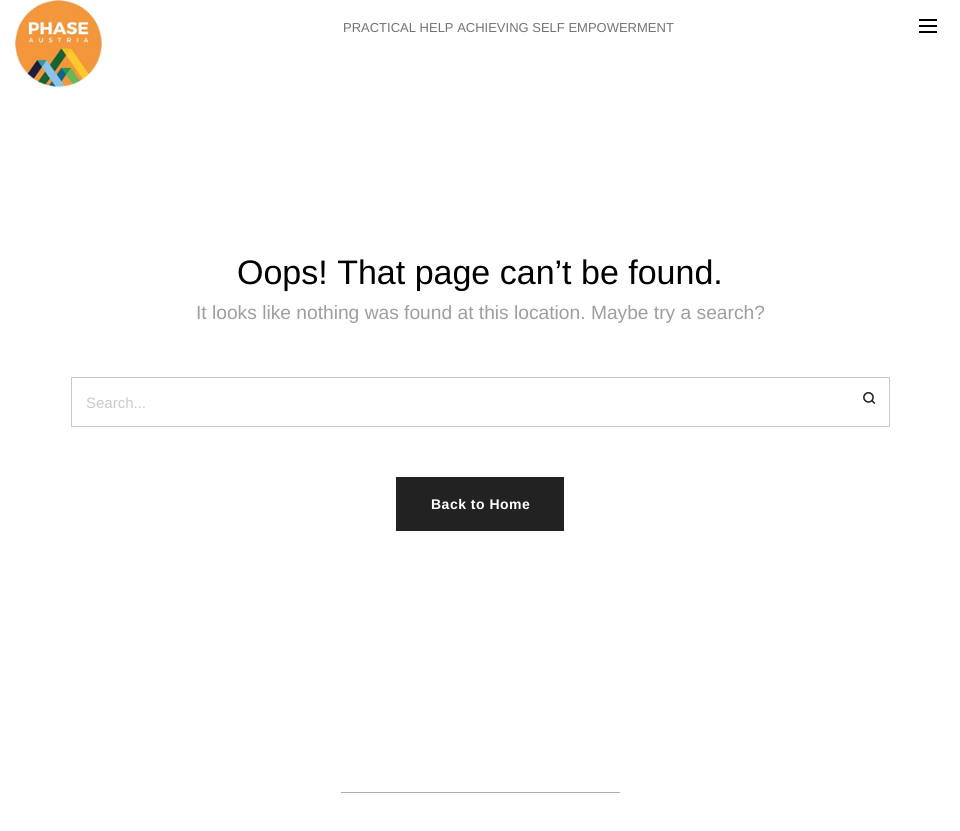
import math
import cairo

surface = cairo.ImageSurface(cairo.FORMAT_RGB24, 960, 831)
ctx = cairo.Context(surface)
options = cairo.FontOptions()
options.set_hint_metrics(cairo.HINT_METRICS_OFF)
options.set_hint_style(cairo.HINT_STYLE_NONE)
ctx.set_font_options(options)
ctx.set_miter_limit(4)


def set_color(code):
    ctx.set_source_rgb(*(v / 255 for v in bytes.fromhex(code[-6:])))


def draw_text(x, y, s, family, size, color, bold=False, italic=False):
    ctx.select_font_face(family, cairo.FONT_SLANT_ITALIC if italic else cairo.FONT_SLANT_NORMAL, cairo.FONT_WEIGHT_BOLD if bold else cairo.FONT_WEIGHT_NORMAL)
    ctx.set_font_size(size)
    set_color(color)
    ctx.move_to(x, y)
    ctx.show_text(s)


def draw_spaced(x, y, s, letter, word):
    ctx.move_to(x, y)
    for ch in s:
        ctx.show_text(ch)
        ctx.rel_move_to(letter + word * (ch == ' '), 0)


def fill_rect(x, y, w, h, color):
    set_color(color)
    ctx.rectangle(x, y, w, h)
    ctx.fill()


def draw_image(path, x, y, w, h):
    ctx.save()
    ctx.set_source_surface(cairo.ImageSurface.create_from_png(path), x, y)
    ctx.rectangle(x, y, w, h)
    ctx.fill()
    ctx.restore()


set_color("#ffffff")
ctx.paint()
draw_image("assets/img1.png", 15, 0, 87, 87)
draw_text(343, 32, "PRACTICAL HELP ACHIEVING SELF EMPOWERMENT", "Liberation Sans", 13, "#737373")
fill_rect(919, 19, 18, 2, "#000000")
fill_rect(919, 25, 18, 2, "#000000")
fill_rect(919, 31, 18, 2, "#000000")
draw_text(237, 284, "Oops! That page can’t be found.", "Liberation Sans", 34, "#000000")
draw_text(196, 319, "It looks like nothing was found at this location. Maybe try a search?", "Liberation Sans", 19.2, "#9e9e9e")
ctx.rectangle(71.5, 377.5, 818, 49)
set_color("#cacaca")
ctx.set_line_width(1)
ctx.stroke()
draw_text(86, 408, "Search...", "Liberation Sans", 15, "#cacaca")
draw_image("assets/img2.png", 863, 392, 13, 12)
fill_rect(396, 477, 168, 54, "#222222")
ctx.select_font_face("Liberation Sans", cairo.FONT_SLANT_NORMAL, cairo.FONT_WEIGHT_BOLD)
ctx.set_font_size(14)
set_color("#ffffff")
draw_spaced(431, 509, "Back to Home", 0.5, 0)
fill_rect(341, 792, 279, 1, "#acacac")
surface.write_to_png("output.png")
